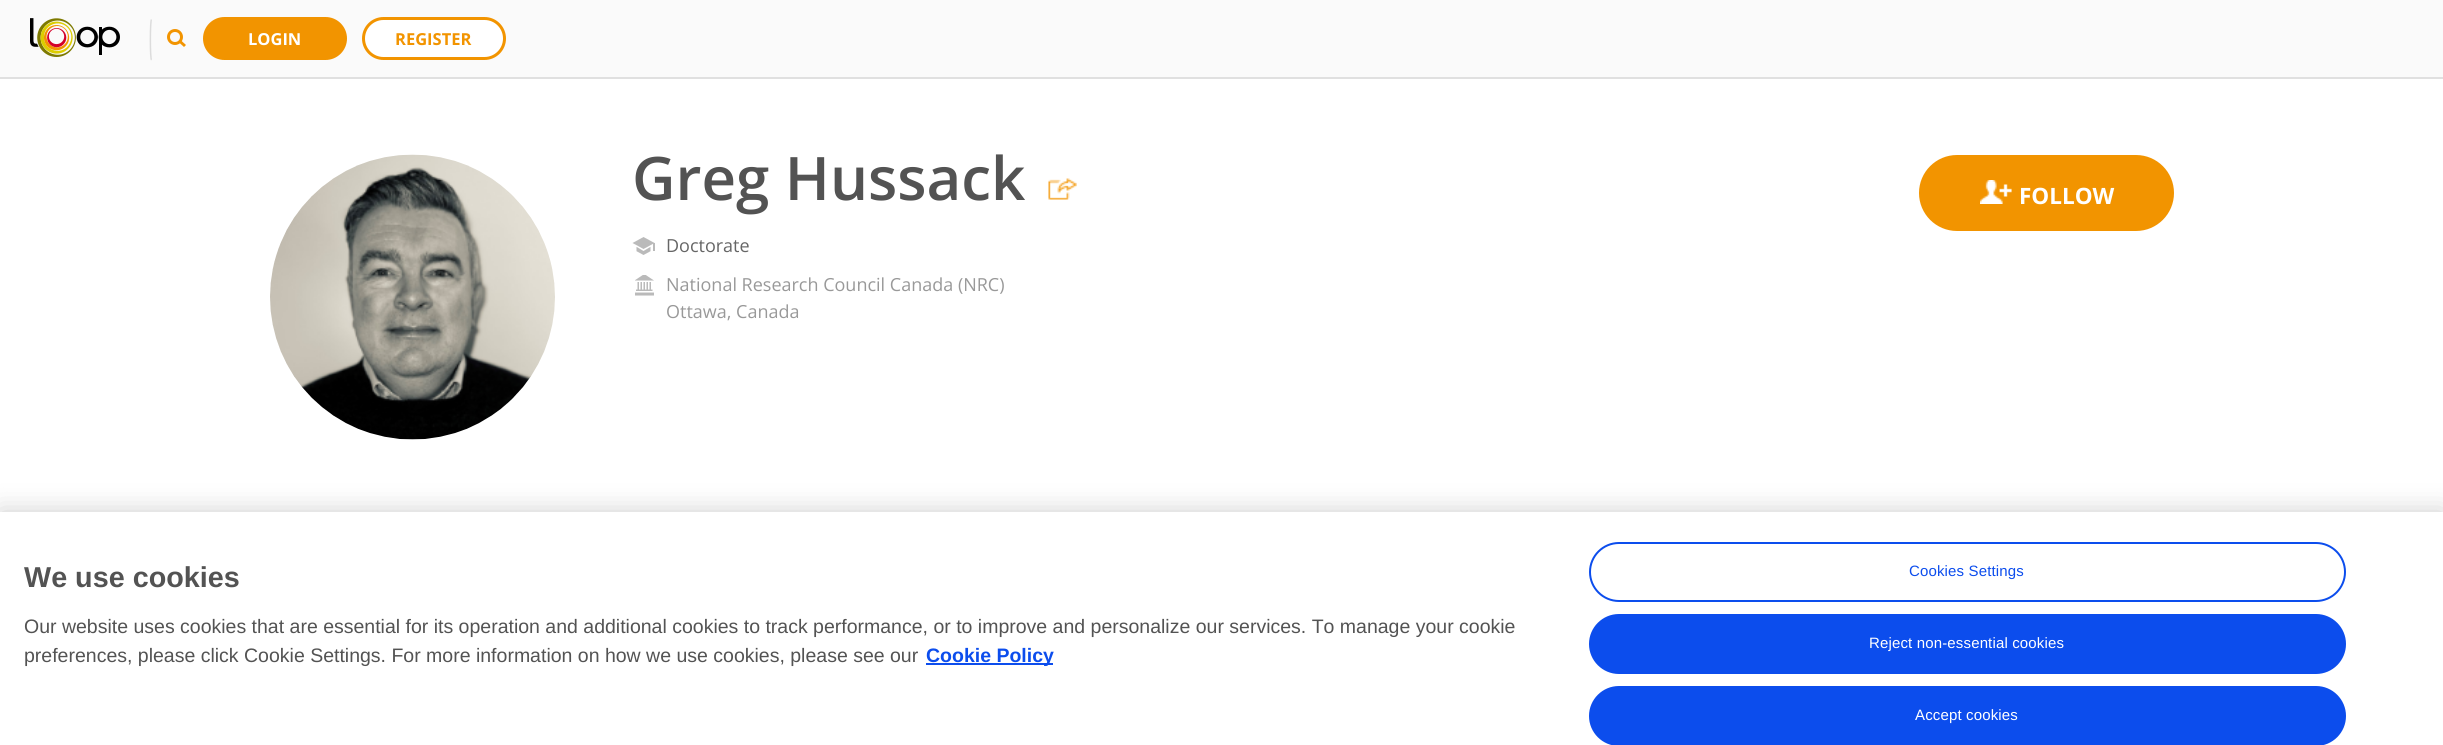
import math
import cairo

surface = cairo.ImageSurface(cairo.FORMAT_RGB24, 2443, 745)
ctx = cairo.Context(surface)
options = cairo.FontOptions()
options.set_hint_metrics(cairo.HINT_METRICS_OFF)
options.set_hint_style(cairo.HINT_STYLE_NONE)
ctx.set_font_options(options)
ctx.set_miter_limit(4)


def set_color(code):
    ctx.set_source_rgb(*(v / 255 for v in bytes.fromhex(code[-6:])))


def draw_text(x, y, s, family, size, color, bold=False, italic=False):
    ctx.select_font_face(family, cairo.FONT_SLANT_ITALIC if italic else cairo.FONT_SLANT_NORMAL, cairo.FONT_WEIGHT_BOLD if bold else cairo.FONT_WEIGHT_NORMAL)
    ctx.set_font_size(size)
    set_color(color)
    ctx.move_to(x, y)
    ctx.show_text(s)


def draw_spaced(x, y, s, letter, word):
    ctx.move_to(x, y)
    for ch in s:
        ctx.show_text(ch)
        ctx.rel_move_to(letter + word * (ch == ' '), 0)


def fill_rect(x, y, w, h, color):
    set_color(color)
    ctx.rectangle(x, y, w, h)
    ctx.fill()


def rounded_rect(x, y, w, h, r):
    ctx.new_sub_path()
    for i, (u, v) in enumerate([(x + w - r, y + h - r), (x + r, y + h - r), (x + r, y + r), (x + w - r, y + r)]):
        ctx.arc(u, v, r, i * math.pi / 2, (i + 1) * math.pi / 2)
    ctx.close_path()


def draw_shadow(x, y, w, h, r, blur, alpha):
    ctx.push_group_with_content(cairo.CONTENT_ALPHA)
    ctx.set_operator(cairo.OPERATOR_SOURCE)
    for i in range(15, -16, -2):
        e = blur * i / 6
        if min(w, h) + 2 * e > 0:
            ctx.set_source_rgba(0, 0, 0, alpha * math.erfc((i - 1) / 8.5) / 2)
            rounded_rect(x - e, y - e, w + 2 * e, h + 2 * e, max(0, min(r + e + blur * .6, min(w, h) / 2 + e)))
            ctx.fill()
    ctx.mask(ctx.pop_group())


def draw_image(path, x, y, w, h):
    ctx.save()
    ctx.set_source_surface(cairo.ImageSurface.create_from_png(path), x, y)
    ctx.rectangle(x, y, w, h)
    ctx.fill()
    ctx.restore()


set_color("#ffffff")
ctx.paint()
fill_rect(0, 0, 2443, 77, "#fafafa")
fill_rect(0, 77, 2443, 2, "#e0e0e0")
draw_image("assets/img1.png", 30, 18, 90, 39)
ctx.new_path()
ctx.move_to(151.5, 60)
ctx.curve_to(150, 59, 150, 20.5, 151.5, 19.5)
set_color("#dcdcdc")
ctx.set_line_width(1.5)
ctx.stroke()
set_color("#f29400")
ctx.arc(175, 37, 8, 0, 2 * math.pi)
ctx.fill()
set_color("#f9f9f9")
ctx.arc(175, 37, 5, 0, 2 * math.pi)
ctx.fill()
set_color("#f29400")
ctx.new_path()
ctx.move_to(180.5, 40)
ctx.line_to(186, 45)
ctx.line_to(184, 47)
ctx.line_to(178.5, 42)
ctx.close_path()
ctx.fill()
rounded_rect(204.5, 18.5, 141, 40, 20)
ctx.fill_preserve()
ctx.set_line_width(3)
ctx.stroke()
draw_text(248, 45, "LOGIN", "Open Sans", 16.5, "#ffffff", bold=True)
rounded_rect(363.5, 18.5, 141, 40, 20)
ctx.fill_preserve()
set_color("#f29400")
ctx.stroke()
draw_text(395, 45, "REGISTER", "Open Sans", 16.5, "#f29400", bold=True)
draw_image("assets/img2.png", 270, 154, 285, 286)
draw_text(632, 200, "Greg Hussack", "Open Sans SemiBold", 60, "#535353")
draw_image("assets/img3.png", 1048, 178, 29, 22)
draw_image("assets/img4.png", 632, 237, 23, 18)
draw_text(666, 252, "Doctorate", "Open Sans", 18, "#666666")
draw_image("assets/img5.png", 635, 275, 19, 21)
draw_text(666, 291, "National Research Council Canada (NRC)", "Open Sans", 18, "#999999")
draw_text(666, 318, "Ottawa, Canada", "Open Sans", 18, "#999999")
set_color("#f29400")
rounded_rect(1921.5, 157.5, 250, 71, 35.5)
ctx.fill_preserve()
ctx.set_line_width(5)
ctx.stroke()
draw_image("assets/img6.png", 1980, 180, 32, 24)
draw_text(2019, 204, "FOLLOW", "Open Sans", 22.5, "#ffffff", bold=True)
set_color("#000000")
draw_shadow(0, 512, 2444, 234, 0, 13.5, 0.2)
fill_rect(0, 512, 2443, 233, "#ffffff")
draw_text(24, 587, "We use cookies", "Liberation Sans", 28.75, "#535353", bold=True)
draw_text(24, 633, "Our website uses cookies that are essential for its operation and additional cookies to track performance, or to improve and personalize our services. To manage your cookie", "Liberation Sans", 19.5, "#535353")
draw_text(24, 662, "preferences, please click Cookie Settings. For more information on how we use cookies, please see our", "Liberation Sans", 19.5, "#535353")
fill_rect(926, 663, 127, 2, "#0c4ded")
draw_text(926, 662, "Cookie Policy", "Liberation Sans", 19.5, "#0c4ded", bold=True)
rounded_rect(1590, 543, 755, 58, 29)
ctx.set_line_width(2)
ctx.stroke()
ctx.select_font_face("Liberation Sans")
ctx.set_font_size(15)
draw_spaced(1909, 576, "Cookies Settings", 0.15, 0)
rounded_rect(1590, 615, 755, 58, 29)
ctx.fill_preserve()
ctx.stroke()
set_color("#ffffff")
draw_spaced(1869, 648, "Reject non-essential cookies", 0.15, 0)
set_color("#0c4ded")
rounded_rect(1590, 687, 755, 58, 29)
ctx.fill_preserve()
ctx.stroke()
set_color("#ffffff")
draw_spaced(1915, 720, "Accept cookies", 0.15, 0)
surface.write_to_png("output.png")
